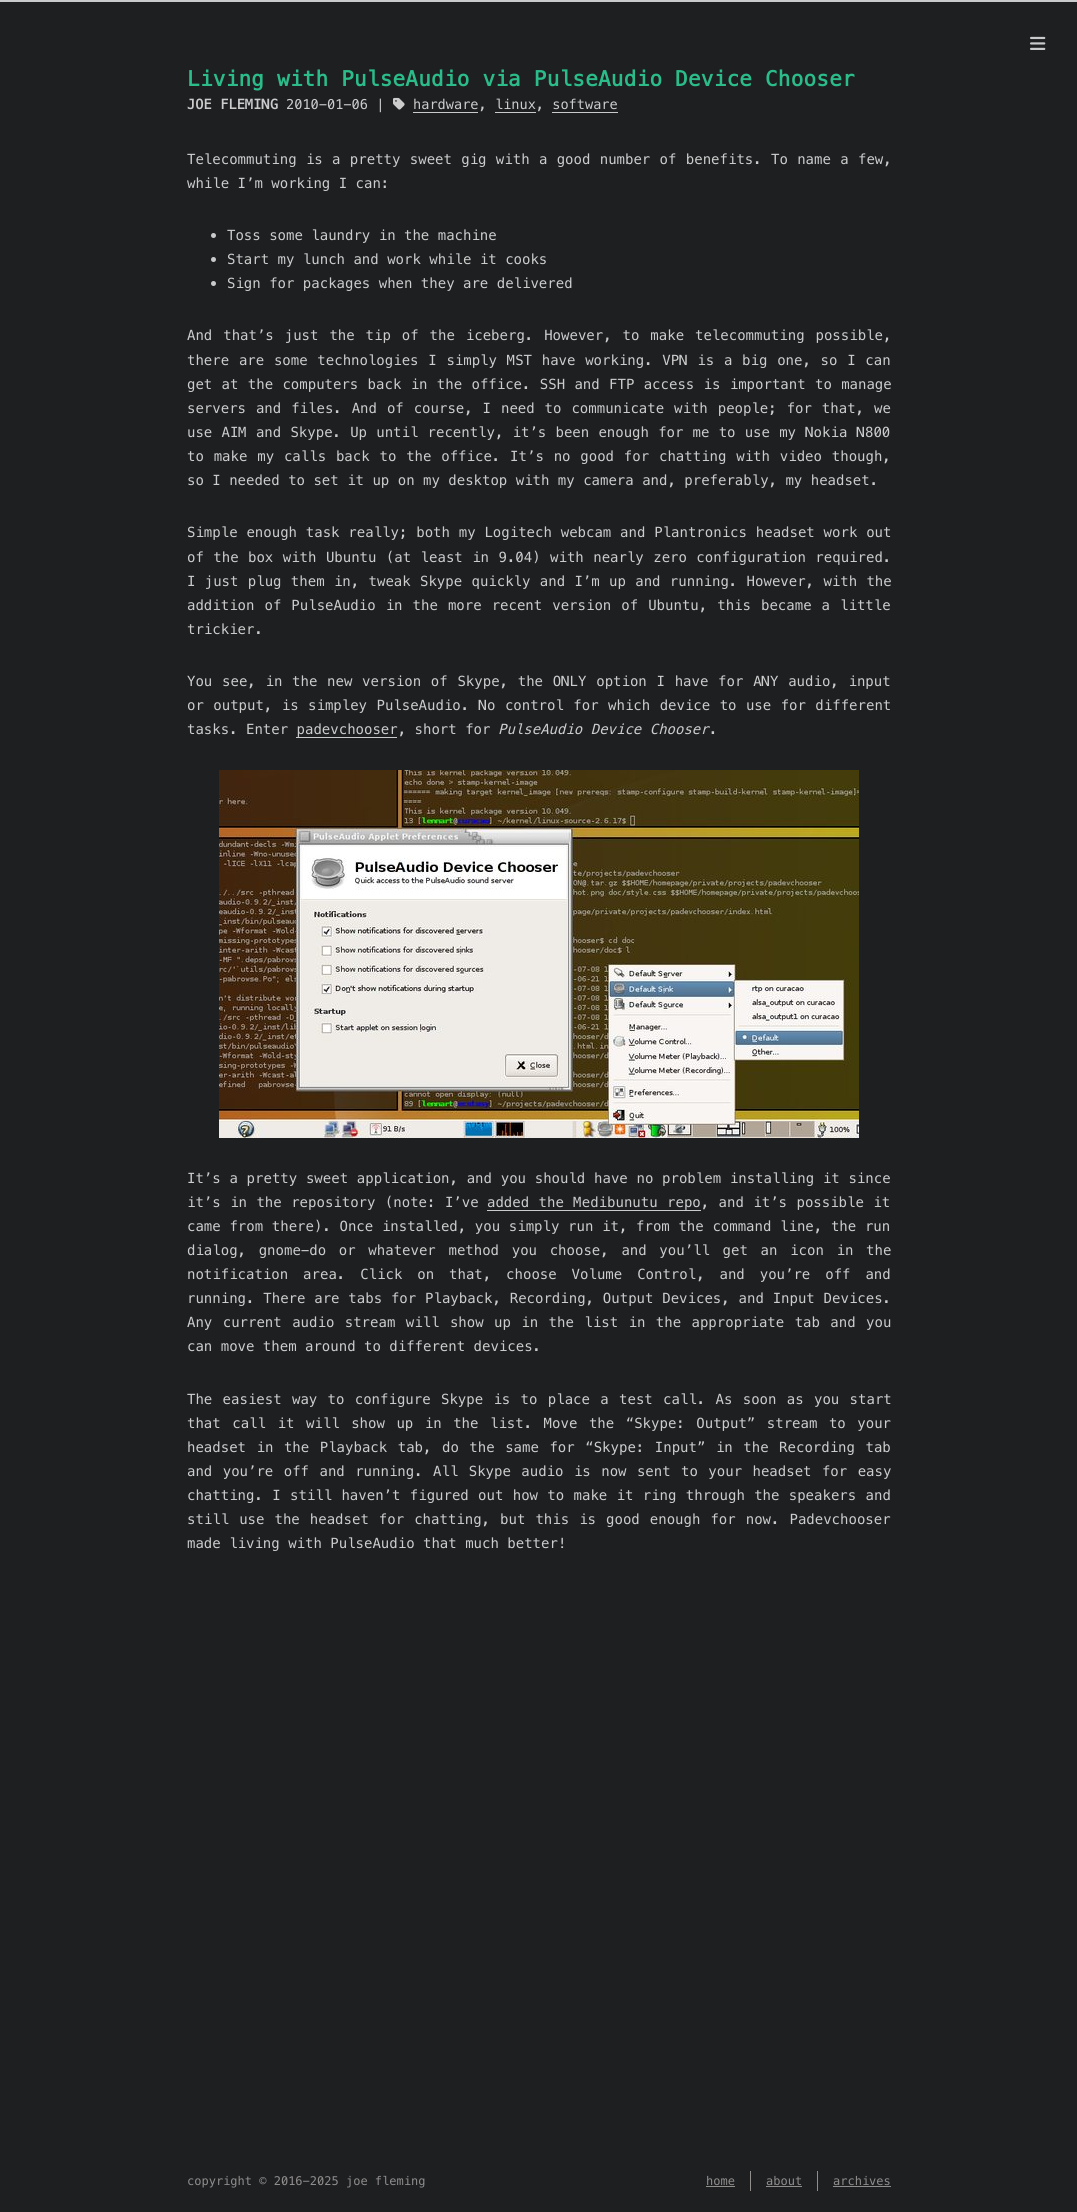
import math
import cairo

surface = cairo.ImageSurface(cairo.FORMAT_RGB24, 1077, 2212)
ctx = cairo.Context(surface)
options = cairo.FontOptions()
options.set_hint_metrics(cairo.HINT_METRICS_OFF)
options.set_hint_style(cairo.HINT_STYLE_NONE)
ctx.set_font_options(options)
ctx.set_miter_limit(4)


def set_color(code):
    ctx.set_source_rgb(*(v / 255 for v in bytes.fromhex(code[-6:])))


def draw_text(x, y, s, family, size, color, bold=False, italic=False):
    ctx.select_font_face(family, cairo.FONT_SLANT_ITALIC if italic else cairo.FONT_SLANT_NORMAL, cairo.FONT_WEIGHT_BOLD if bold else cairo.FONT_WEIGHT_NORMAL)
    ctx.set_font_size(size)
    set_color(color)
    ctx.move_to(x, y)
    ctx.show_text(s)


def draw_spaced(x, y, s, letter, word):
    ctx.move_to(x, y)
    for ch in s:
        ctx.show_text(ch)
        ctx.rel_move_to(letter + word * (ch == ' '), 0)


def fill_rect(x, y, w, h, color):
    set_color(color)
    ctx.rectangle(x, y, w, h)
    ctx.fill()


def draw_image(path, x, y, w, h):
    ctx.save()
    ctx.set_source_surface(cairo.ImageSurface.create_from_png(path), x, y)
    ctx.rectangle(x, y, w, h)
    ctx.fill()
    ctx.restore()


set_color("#1d1f21")
ctx.paint()
fill_rect(0, 0, 1077, 2, "#c9cacc")
draw_image("assets/img1.png", 1030, 36, 16, 14)
ctx.select_font_face("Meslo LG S", cairo.FONT_SLANT_NORMAL, cairo.FONT_WEIGHT_BOLD)
ctx.set_font_size(21)
set_color("#2bbc8a")
draw_spaced(187, 86, "Living with PulseAudio via PulseAudio Device Chooser", 0.2, 0)
ctx.set_font_size(13.6)
set_color("#cccccc")
draw_spaced(187, 109, "JOE FLEMING", 0.1, 0)
draw_text(286, 109, "2010-01-06 |", "Meslo LG S", 13.6, "#cccccc")
draw_image("assets/img2.png", 393, 97, 12, 13)
draw_text(413, 109, "hardware, linux, software", "Meslo LG S", 13.6, "#cccccc")
gradient = cairo.LinearGradient(446, 107, 446, 113)
gradient.add_color_stop_rgba(0, 0.114, 0.122, 0.129, 1)
gradient.add_color_stop_rgba(0.83, 0.114, 0.122, 0.129, 1)
gradient.add_color_stop_rgba(0.83, 0.788, 0.792, 0.8, 1)
gradient.add_color_stop_rgba(1, 0.788, 0.792, 0.8, 1)
ctx.set_source(gradient)
ctx.rectangle(413, 112, 65, 1)
ctx.fill()
gradient = cairo.LinearGradient(516, 107, 516, 113)
gradient.add_color_stop_rgba(0, 0.114, 0.122, 0.129, 1)
gradient.add_color_stop_rgba(0.83, 0.114, 0.122, 0.129, 1)
gradient.add_color_stop_rgba(0.83, 0.788, 0.792, 0.8, 1)
gradient.add_color_stop_rgba(1, 0.788, 0.792, 0.8, 1)
ctx.set_source(gradient)
ctx.rectangle(495, 112, 41, 1)
ctx.fill()
gradient = cairo.LinearGradient(585, 107, 585, 113)
gradient.add_color_stop_rgba(0, 0.114, 0.122, 0.129, 1)
gradient.add_color_stop_rgba(0.83, 0.114, 0.122, 0.129, 1)
gradient.add_color_stop_rgba(0.83, 0.788, 0.792, 0.8, 1)
gradient.add_color_stop_rgba(1, 0.788, 0.792, 0.8, 1)
ctx.set_source(gradient)
ctx.rectangle(552, 112, 66, 1)
ctx.fill()
ctx.set_font_size(14)
set_color("#cccccc")
draw_spaced(187, 164, "Telecommuting is a pretty sweet gig with a good number of benefits. To name a few,", 0, 0.9)
draw_text(187, 188, "while I’m working I can:", "Meslo LG S", 14, "#cccccc")
set_color("#c9cacc")
ctx.new_path()
ctx.arc(213.5, 235.5, 2.5, 0, 2 * math.pi)
ctx.fill()
draw_text(227, 240, "Toss some laundry in the machine", "Meslo LG S", 14, "#cccccc")
set_color("#c9cacc")
ctx.new_path()
ctx.arc(213.5, 259.5, 2.5, 0, 2 * math.pi)
ctx.fill()
draw_text(227, 264, "Start my lunch and work while it cooks", "Meslo LG S", 14, "#cccccc")
set_color("#c9cacc")
ctx.new_path()
ctx.arc(213.5, 283.5, 2.5, 0, 2 * math.pi)
ctx.fill()
draw_text(227, 288, "Sign for packages when they are delivered", "Meslo LG S", 14, "#cccccc")
draw_spaced(187, 340, "And that’s just the tip of the iceberg. However, to make telecommuting possible,", 0, 2.5)
draw_spaced(187, 365, "there are some technologies I simply MST have working. VPN is a big one, so I can", 0, 1.3)
draw_spaced(187, 389, "get at the computers back in the office. SSH and FTP access is important to manage", 0, 0.9)
draw_spaced(187, 413, "servers and files. And of course, I need to communicate with people; for that, we", 0, 1.5)
draw_spaced(187, 437, "use AIM and Skype. Up until recently, it’s been enough for me to use my Nokia N800", 0, 0.75)
draw_spaced(187, 461, "to make my calls back to the office. It’s no good for chatting with video though,", 0, 1.4)
draw_text(187, 485, "so I needed to set it up on my desktop with my camera and, preferably, my headset.", "Meslo LG S", 14, "#cccccc")
draw_spaced(187, 537, "Simple enough task really; both my Logitech webcam and Plantronics headset work out", 0, 0.4)
draw_spaced(187, 562, "of the box with Ubuntu (at least in 9.04) with nearly zero configuration required.", 0, 1)
draw_spaced(187, 586, "I just plug them in, tweak Skype quickly and I’m up and running. However, with the", 0, 0.9)
draw_spaced(187, 610, "addition of PulseAudio in the more recent version of Ubuntu, this became a little", 0, 1.6)
draw_text(187, 634, "trickier.", "Meslo LG S", 14, "#cccccc")
draw_spaced(187, 686, "You see, in the new version of Skype, the ONLY option I have for ANY audio, input", 0, 1.3)
draw_spaced(187, 710, "or output, is simpley PulseAudio. No control for which device to use for different", 0, 1)
draw_text(187, 734, "tasks. Enter padevchooser, short for", "Meslo LG S", 14, "#cccccc")
draw_text(498, 734, "PulseAudio Device Chooser", "Meslo LG S", 14, "#cccccc", italic=True)
draw_text(709, 734, ".", "Meslo LG S", 14, "#cccccc")
gradient = cairo.LinearGradient(347, 732, 347, 738)
gradient.add_color_stop_rgba(0, 0.114, 0.122, 0.129, 1)
gradient.add_color_stop_rgba(0.83, 0.114, 0.122, 0.129, 1)
gradient.add_color_stop_rgba(0.83, 0.788, 0.792, 0.8, 1)
gradient.add_color_stop_rgba(1, 0.788, 0.792, 0.8, 1)
ctx.set_source(gradient)
ctx.rectangle(296, 737, 101, 1)
ctx.fill()
draw_image("assets/img3.png", 219, 770, 640, 368)
set_color("#cccccc")
draw_spaced(187, 1183, "It’s a pretty sweet application, and you should have no problem installing it since", 0, 0.3)
draw_spaced(187, 1207, "it’s in the repository (note: I’ve", 0, 1)
draw_spaced(487, 1207, "added the Medibunutu repo, and it’s possible it", 0, 1)
gradient = cairo.LinearGradient(594, 1205, 594, 1211)
gradient.add_color_stop_rgba(0, 0.114, 0.122, 0.129, 1)
gradient.add_color_stop_rgba(0.83, 0.114, 0.122, 0.129, 1)
gradient.add_color_stop_rgba(0.83, 0.788, 0.792, 0.8, 1)
gradient.add_color_stop_rgba(1, 0.788, 0.792, 0.8, 1)
ctx.set_source(gradient)
ctx.rectangle(487, 1210, 214, 1)
ctx.fill()
set_color("#cccccc")
draw_spaced(187, 1231, "came from there). Once installed, you simply run it, from the command line, the run", 0, 0.25)
draw_spaced(187, 1255, "dialog, gnome-do or whatever method you choose, and you’ll get an icon in the", 0, 4.25)
draw_spaced(187, 1279, "notification area. Click on that, choose Volume Control, and you’re off and", 0, 6.5)
draw_spaced(187, 1303, "running. There are tabs for Playback, Recording, Output Devices, and Input Devices.", 0, 0.4)
draw_spaced(187, 1327, "Any current audio stream will show up in the list in the appropriate tab and you", 0, 2)
draw_text(187, 1351, "can move them around to different devices.", "Meslo LG S", 14, "#cccccc")
draw_spaced(187, 1404, "The easiest way to configure Skype is to place a test call. As soon as you start", 0, 1.9)
draw_spaced(187, 1428, "that call it will show up in the list. Move the “Skype: Output” stream to your", 0, 3.1)
draw_spaced(187, 1452, "headset in the Playback tab, do the same for “Skype: Input” in the Recording tab", 0, 2.1)
draw_spaced(187, 1476, "and you’re off and running. All Skype audio is now sent to your headset for easy", 0, 2)
draw_spaced(187, 1500, "chatting. I still haven’t figured out how to make it ring through the speakers and", 0, 0.9)
draw_spaced(187, 1524, "still use the headset for chatting, but this is good enough for now. Padevchooser", 0, 1.6)
draw_text(187, 1548, "made living with PulseAudio that much better!", "Meslo LG S", 14, "#cccccc")
draw_text(187, 2185, "copyright © 2016-2025 joe fleming", "Meslo LG S", 12, "#908d8d")
fill_rect(750, 2171, 1, 20, "#908d8d")
draw_text(706, 2185, "home", "Meslo LG S", 12, "#908d8d")
fill_rect(706, 2186, 29, 1, "#908d8d")
fill_rect(817, 2171, 1, 20, "#908d8d")
draw_text(766, 2185, "about", "Meslo LG S", 12, "#908d8d")
fill_rect(766, 2186, 36, 1, "#908d8d")
draw_text(833, 2185, "archives", "Meslo LG S", 12, "#908d8d")
fill_rect(833, 2186, 58, 1, "#908d8d")
surface.write_to_png("output.png")
